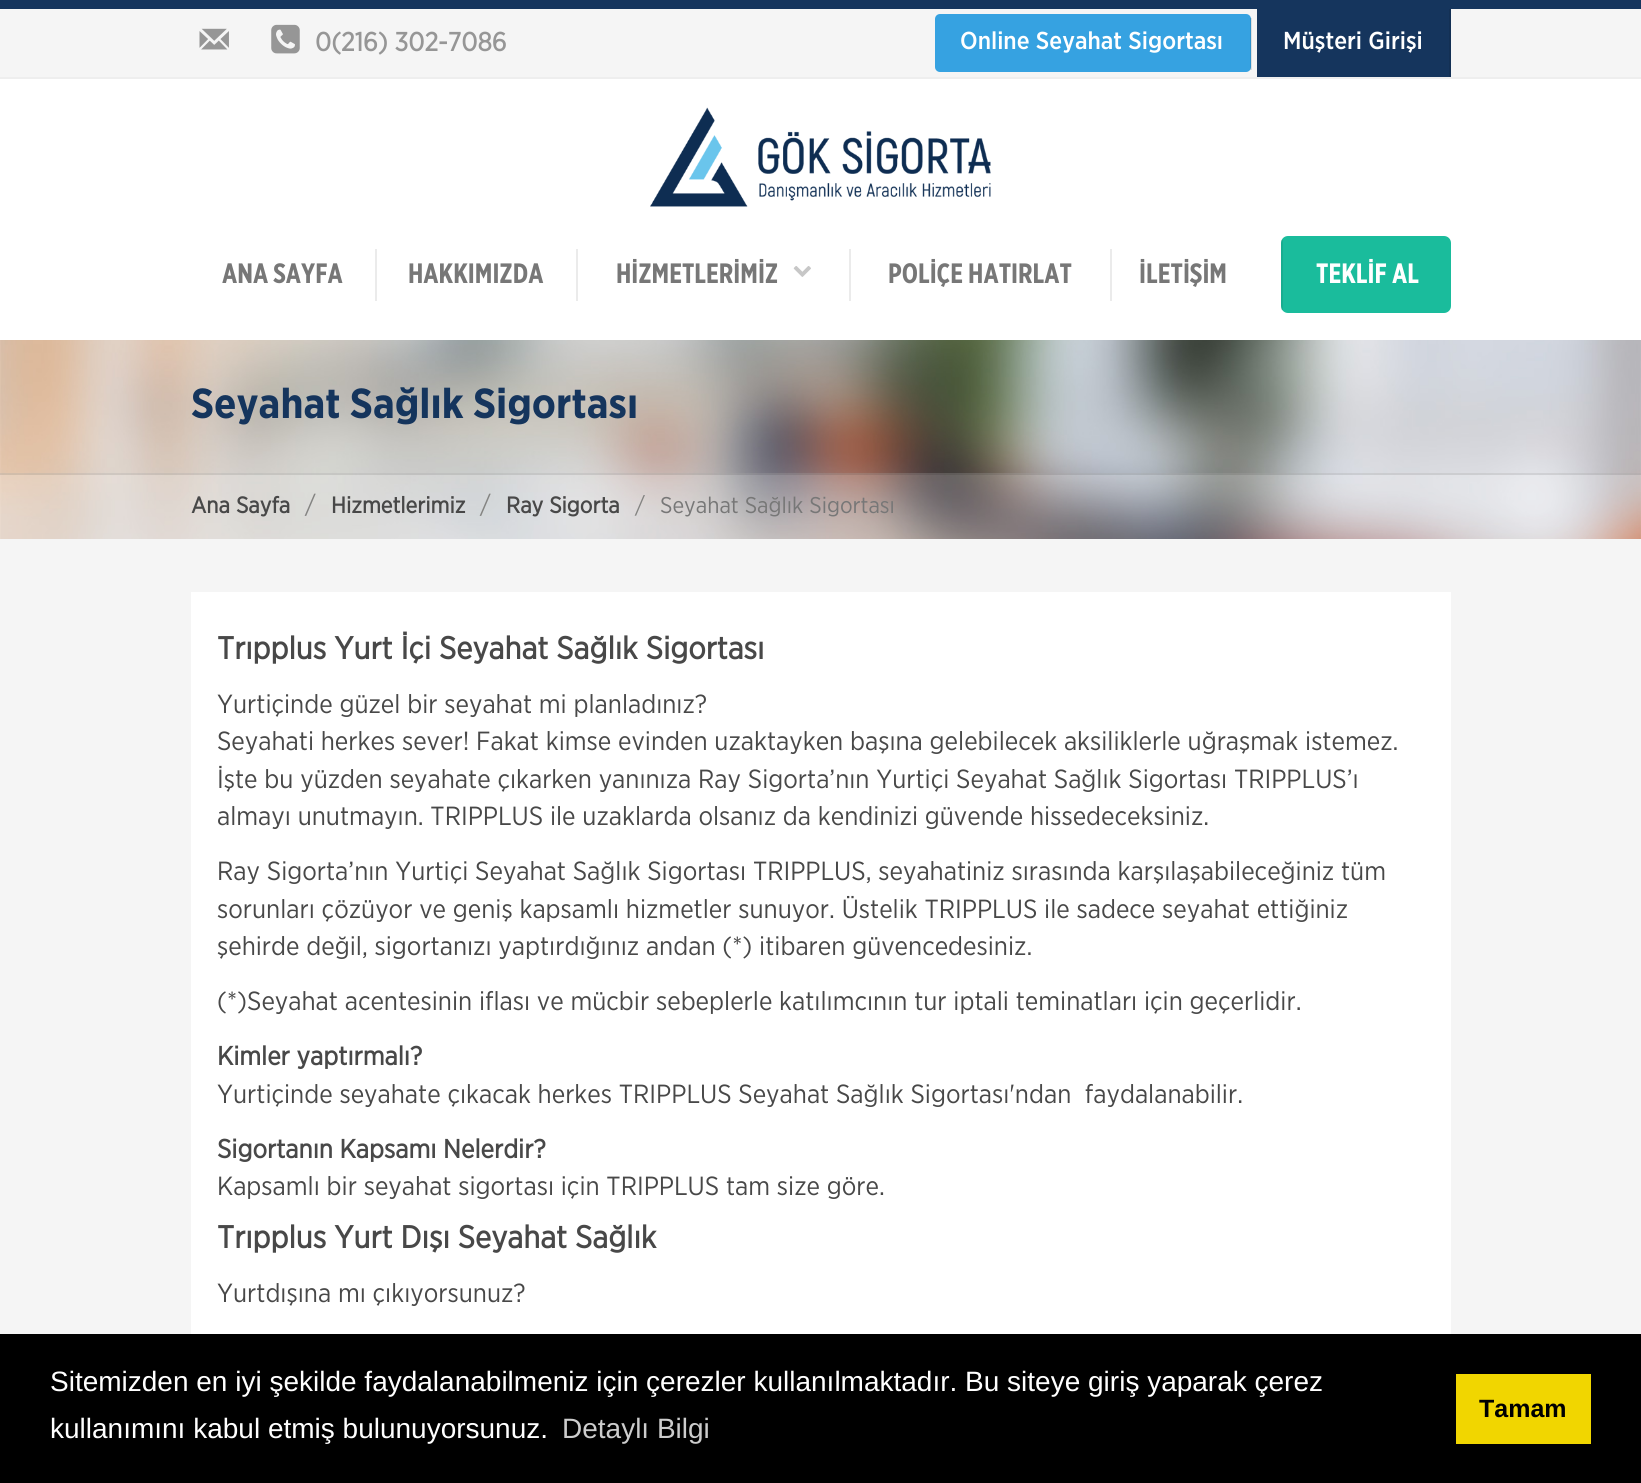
import math
import cairo

surface = cairo.ImageSurface(cairo.FORMAT_RGB24, 1641, 1483)
ctx = cairo.Context(surface)
options = cairo.FontOptions()
options.set_hint_metrics(cairo.HINT_METRICS_OFF)
options.set_hint_style(cairo.HINT_STYLE_NONE)
ctx.set_font_options(options)
ctx.set_miter_limit(4)


def set_color(code):
    ctx.set_source_rgb(*(v / 255 for v in bytes.fromhex(code[-6:])))


def draw_text(x, y, s, family, size, color, bold=False, italic=False):
    ctx.select_font_face(family, cairo.FONT_SLANT_ITALIC if italic else cairo.FONT_SLANT_NORMAL, cairo.FONT_WEIGHT_BOLD if bold else cairo.FONT_WEIGHT_NORMAL)
    ctx.set_font_size(size)
    set_color(color)
    ctx.move_to(x, y)
    ctx.show_text(s)


def fill_rect(x, y, w, h, color):
    set_color(color)
    ctx.rectangle(x, y, w, h)
    ctx.fill()


def rounded_rect(x, y, w, h, r):
    ctx.new_sub_path()
    for i, (u, v) in enumerate([(x + w - r, y + h - r), (x + r, y + h - r), (x + r, y + r), (x + w - r, y + r)]):
        ctx.arc(u, v, r, i * math.pi / 2, (i + 1) * math.pi / 2)
    ctx.close_path()


def draw_image(path, x, y, w, h):
    ctx.save()
    ctx.set_source_surface(cairo.ImageSurface.create_from_png(path), x, y)
    ctx.rectangle(x, y, w, h)
    ctx.fill()
    ctx.restore()


set_color("#f5f5f5")
ctx.paint()
fill_rect(0, 0, 1641, 9, "#15355d")
fill_rect(0, 77, 1641, 2, "#eeeeee")
draw_image("assets/img1.png", 199, 28, 30, 22)
draw_image("assets/img2.png", 271, 24, 29, 30)
draw_text(315, 51, "0(216) 302-7086", "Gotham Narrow", 26.25, "#969696", bold=True)
set_color("#36a2e1")
rounded_rect(935, 14, 316, 58, 5)
ctx.fill()
ctx.set_source_rgba(0, 0, 0, 0.1)
ctx.rectangle(1250, 18, 2, 52)
ctx.fill()
draw_text(960, 49, "Online Seyahat Sigortası", "Gotham Narrow Medium", 24.5, "#ffffff")
fill_rect(1257, 9, 192, 68, "#15355d")
fill_rect(1449, 9, 2, 68, "#133054")
draw_text(1283, 49, "Müşteri Girişi", "Gotham Narrow Medium", 24.5, "#ffffff")
fill_rect(0, 79, 1641, 261, "#ffffff")
draw_image("assets/img3.png", 650, 107, 341, 100)
draw_text(222, 283, "ANA SAYFA", "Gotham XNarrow", 28, "#777777", bold=True)
fill_rect(375, 249, 2, 52, "#ebebeb")
draw_text(408, 283, "HAKKIMIZDA", "Gotham XNarrow", 28, "#777777", bold=True)
fill_rect(576, 249, 2, 52, "#ebebeb")
draw_text(616, 283, "HİZMETLERİMİZ", "Gotham XNarrow", 28, "#777777", bold=True)
draw_image("assets/img4.png", 793, 266, 18, 11)
fill_rect(849, 249, 2, 52, "#ebebeb")
draw_text(888, 283, "POLİÇE HATIRLAT", "Gotham XNarrow", 28, "#777777", bold=True)
fill_rect(1110, 249, 2, 52, "#ebebeb")
draw_text(1139, 283, "İLETİŞİM", "Gotham XNarrow", 28, "#777777", bold=True)
set_color("#1abc9c")
rounded_rect(1281, 236, 170, 77, 7)
ctx.fill()
ctx.set_source_rgba(0, 0, 0, 0.08)
ctx.rectangle(1281, 240, 2, 70)
ctx.fill()
draw_text(1316, 283, "TEKLİF AL", "Gotham XNarrow", 28, "#ffffff", bold=True)
draw_image("assets/img5.png", 0, 340, 1641, 199)
draw_text(191, 418, "Seyahat Sağlık Sigortası", "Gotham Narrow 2", 42, "#15355d", bold=True)
ctx.set_source_rgba(1, 1, 1, 0.2)
ctx.rectangle(0, 473, 1641, 66)
ctx.fill()
ctx.set_source_rgba(0, 0, 0, 0.1)
ctx.rectangle(0, 473, 1641, 2)
ctx.fill()
draw_text(191, 513, "Ana Sayfa", "Gotham Narrow", 22.75, "#484848", bold=True)
draw_text(305, 513, "/", "Gotham Narrow", 24.5, "#848482")
draw_text(331, 513, "Hizmetlerimiz", "Gotham Narrow", 22.75, "#484848", bold=True)
draw_text(480, 513, "/", "Gotham Narrow", 24.5, "#848482")
draw_text(506, 513, "Ray Sigorta", "Gotham Narrow", 22.75, "#484848", bold=True)
draw_text(635, 513, "/", "Gotham Narrow", 22.75, "#848482")
draw_text(660, 513, "Seyahat Sağlık Sigortası", "Gotham Narrow", 22.75, "#777777")
fill_rect(191, 592, 1260, 742, "#ffffff")
draw_text(217, 659, "Trıpplus Yurt İçi Seyahat Sağlık Sigortası", "Gotham Narrow", 31.5, "#484848", bold=True)
draw_text(217, 713, "Yurtiçinde güzel bir seyahat mi planladınız?", "Gotham Narrow", 26.25, "#484848")
draw_text(217, 750, "Seyahati herkes sever! Fakat kimse evinden uzaktayken başına gelebilecek aksiliklerle uğraşmak istemez.", "Gotham Narrow", 26.25, "#484848")
draw_text(217, 788, "İşte bu yüzden seyahate çıkarken yanınıza Ray Sigorta’nın Yurtiçi Seyahat Sağlık Sigortası TRIPPLUS’ı", "Gotham Narrow", 26.25, "#484848")
draw_text(217, 825, "almayı unutmayın. TRIPPLUS ile uzaklarda olsanız da kendinizi güvende hissedeceksiniz.", "Gotham Narrow", 26.25, "#484848")
draw_text(217, 880, "Ray Sigorta’nın Yurtiçi Seyahat Sağlık Sigortası TRIPPLUS, seyahatiniz sırasında karşılaşabileceğiniz tüm", "Gotham Narrow", 26.25, "#484848")
draw_text(217, 918, "sorunları çözüyor ve geniş kapsamlı hizmetler sunuyor. Üstelik TRIPPLUS ile sadece seyahat ettiğiniz", "Gotham Narrow", 26.25, "#484848")
draw_text(217, 955, "şehirde değil, sigortanızı yaptırdığınız andan (*) itibaren güvencedesiniz.", "Gotham Narrow", 26.25, "#484848")
draw_text(217, 1010, "(*)Seyahat acentesinin iflası ve mücbir sebeplerle katılımcının tur iptali teminatları için geçerlidir.", "Gotham Narrow", 26.25, "#484848")
draw_text(217, 1065, "Kimler yaptırmalı?", "Gotham Narrow", 26.25, "#484848", bold=True)
draw_text(217, 1103, "Yurtiçinde seyahate çıkacak herkes TRIPPLUS Seyahat Sağlık Sigortası'ndan  faydalanabilir.", "Gotham Narrow", 26.25, "#484848")
draw_text(217, 1158, "Sigortanın Kapsamı Nelerdir?", "Gotham Narrow", 26.25, "#484848", bold=True)
draw_text(217, 1195, "Kapsamlı bir seyahat sigortası için TRIPPLUS tam size göre.", "Gotham Narrow", 26.25, "#484848")
draw_text(217, 1248, "Trıpplus Yurt Dışı Seyahat Sağlık", "Gotham Narrow", 31.5, "#484848", bold=True)
draw_text(217, 1302, "Yurtdışına mı çıkıyorsunuz?", "Gotham Narrow", 26.25, "#484848")
fill_rect(0, 1334, 1641, 149, "#000000")
draw_text(50, 1391, "Sitemizden en iyi şekilde faydalanabilmeniz için çerezler kullanılmaktadır. Bu siteye giriş yaparak çerez", "Liberation Sans", 28, "#ffffff")
draw_text(50, 1438, "kullanımını kabul etmiş bulunuyorsunuz.", "Liberation Sans", 28, "#ffffff")
draw_text(562, 1438, "Detaylı Bilgi", "Liberation Sans", 28, "#cccccc")
fill_rect(1456, 1374, 135, 70, "#f1d600")
draw_text(1479, 1417, "Tamam", "Liberation Sans", 25, "#000000", bold=True)
surface.write_to_png("output.png")
